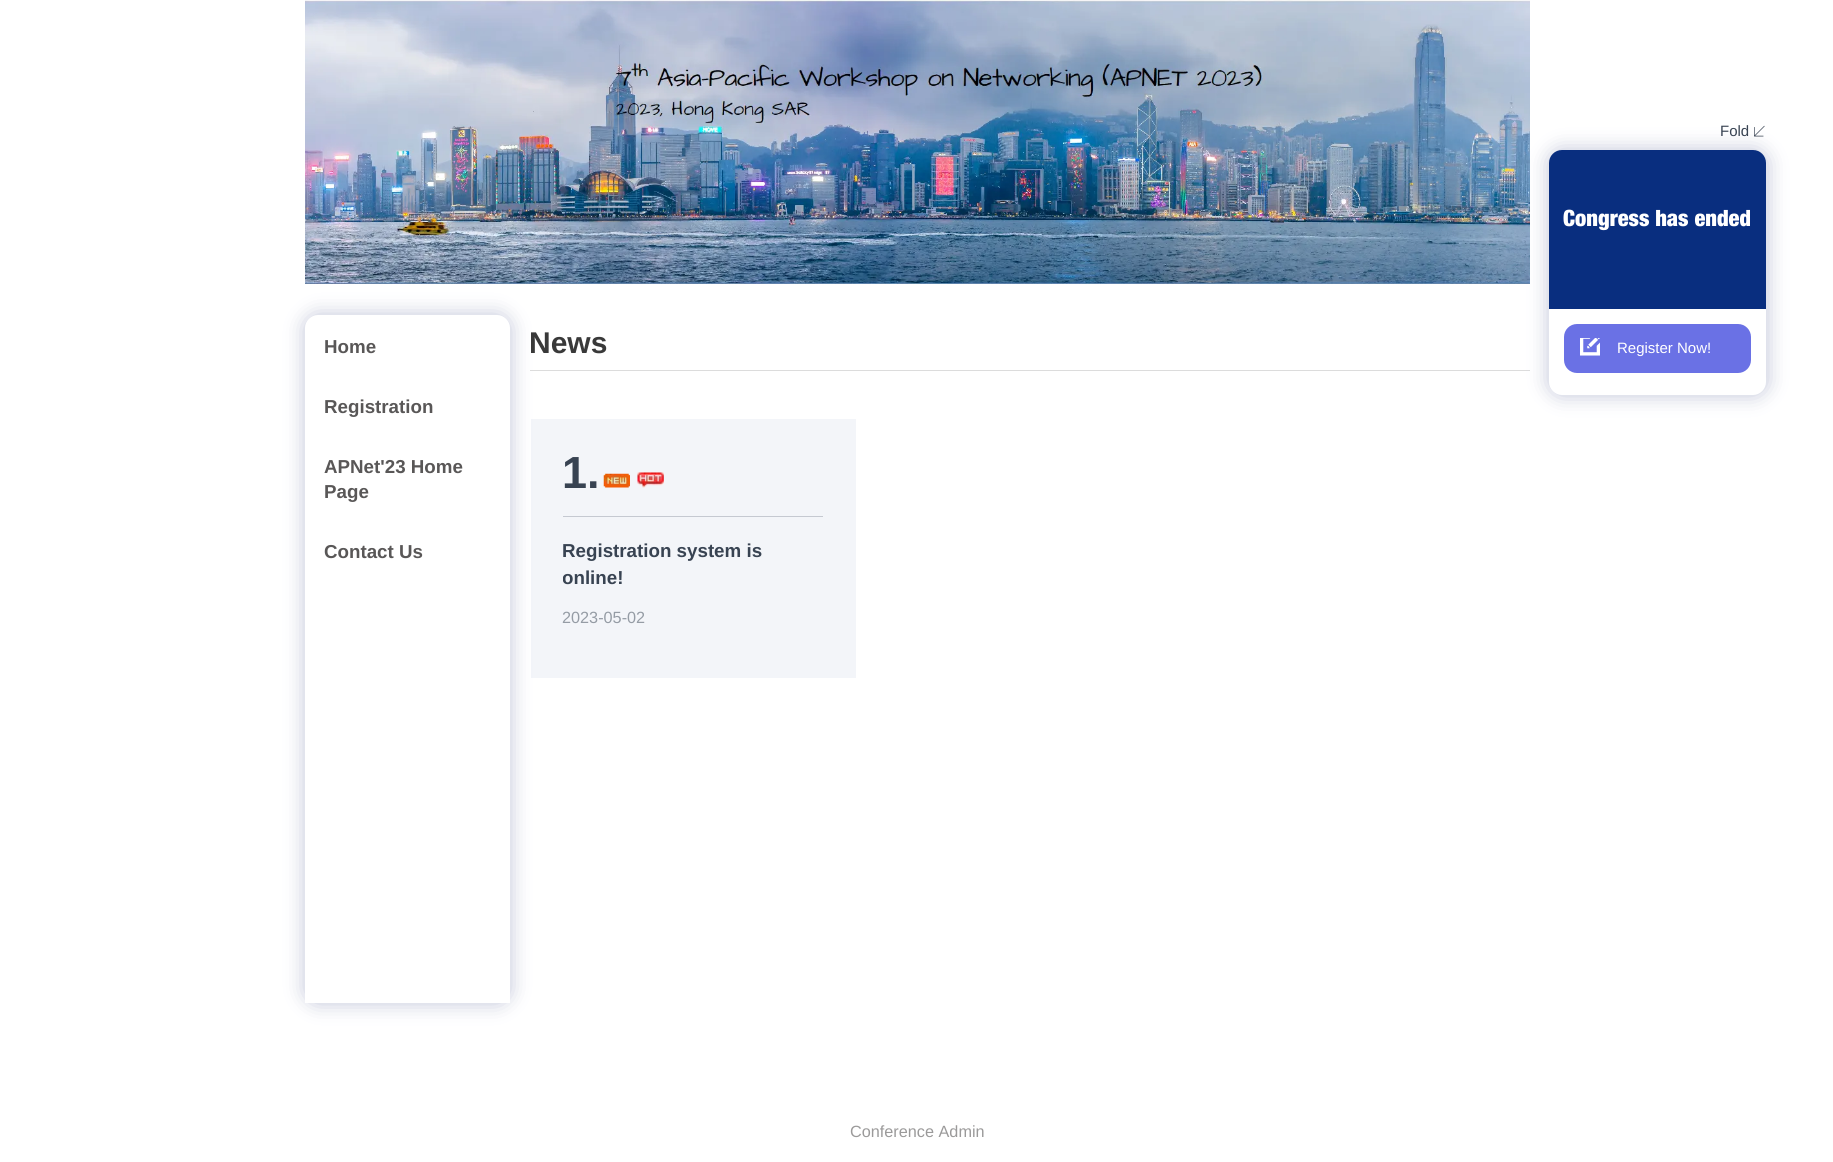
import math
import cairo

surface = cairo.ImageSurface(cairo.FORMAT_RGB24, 1833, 1162)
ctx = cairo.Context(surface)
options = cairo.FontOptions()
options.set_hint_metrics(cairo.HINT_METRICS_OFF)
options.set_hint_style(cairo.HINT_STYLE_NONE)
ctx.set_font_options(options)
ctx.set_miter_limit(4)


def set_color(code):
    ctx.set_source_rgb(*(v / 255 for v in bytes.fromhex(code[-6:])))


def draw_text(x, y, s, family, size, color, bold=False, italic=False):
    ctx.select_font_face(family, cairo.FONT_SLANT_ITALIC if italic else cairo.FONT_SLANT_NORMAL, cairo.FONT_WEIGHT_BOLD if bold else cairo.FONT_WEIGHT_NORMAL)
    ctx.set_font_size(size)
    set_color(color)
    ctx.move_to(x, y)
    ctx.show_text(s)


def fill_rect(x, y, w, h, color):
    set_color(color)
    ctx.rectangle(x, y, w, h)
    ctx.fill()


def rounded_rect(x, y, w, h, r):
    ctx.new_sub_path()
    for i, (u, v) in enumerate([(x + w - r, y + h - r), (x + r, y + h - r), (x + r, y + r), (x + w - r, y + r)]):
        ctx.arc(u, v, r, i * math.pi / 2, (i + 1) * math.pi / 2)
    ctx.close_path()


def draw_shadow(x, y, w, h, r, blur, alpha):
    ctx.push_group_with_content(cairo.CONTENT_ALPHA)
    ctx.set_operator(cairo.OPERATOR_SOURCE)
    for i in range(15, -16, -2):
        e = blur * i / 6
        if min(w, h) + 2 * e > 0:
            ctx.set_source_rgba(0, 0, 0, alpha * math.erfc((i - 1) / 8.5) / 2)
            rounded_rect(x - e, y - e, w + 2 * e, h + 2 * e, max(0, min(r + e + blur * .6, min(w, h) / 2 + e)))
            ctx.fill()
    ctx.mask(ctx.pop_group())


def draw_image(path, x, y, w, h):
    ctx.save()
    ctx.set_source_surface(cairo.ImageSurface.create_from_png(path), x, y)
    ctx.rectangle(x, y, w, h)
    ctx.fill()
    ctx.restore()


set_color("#ffffff")
ctx.paint()
set_color("#3f4c88")
draw_shadow(304, 314, 207, 690, 14, 10, 0.3)
draw_image("assets/img1.png", 305, 0, 1225, 284)
fill_rect(530, 370, 1000, 1, "#dcdcdc")
set_color("#3f4c88")
draw_shadow(1548, 149, 220, 247, 14, 10, 0.3)
draw_text(1720, 136, "Fold", "Liberation Sans", 15, "#384352")
draw_image("assets/img2.png", 1754, 125, 11, 12)
ctx.save()
rounded_rect(1549, 150, 217, 245, 13)
ctx.clip()
set_color("#092e7f")
ctx.new_path()
ctx.move_to(1562, 143)
ctx.line_to(1753, 143)
ctx.curve_to(1760, 143, 1766, 149, 1766, 156)
ctx.line_to(1766, 309)
ctx.line_to(1549, 309)
ctx.line_to(1549, 156)
ctx.curve_to(1549, 149, 1555, 143, 1562, 143)
ctx.close_path()
ctx.fill()
ctx.restore()
draw_text(1563, 226, "Congress has ended", "Helvetica Neue Black", 22.5, "#ffffff")
ctx.new_path()
ctx.move_to(1549, 309)
ctx.line_to(1766, 309)
ctx.line_to(1766, 382)
ctx.curve_to(1766, 389, 1760, 395, 1753, 395)
ctx.line_to(1562, 395)
ctx.curve_to(1555, 395, 1549, 389, 1549, 382)
ctx.close_path()
ctx.fill()
set_color("#6a71e5")
rounded_rect(1564, 324, 187, 49, 13)
ctx.fill()
draw_image("assets/img3.png", 1580, 338, 20, 18)
draw_text(1617, 353, "Register Now!", "Liberation Sans", 15, "#ffffff")
ctx.new_path()
ctx.move_to(318, 315)
ctx.line_to(497, 315)
ctx.curve_to(504, 315, 510, 321, 510, 328)
ctx.line_to(510, 1003)
ctx.line_to(305, 1003)
ctx.line_to(305, 328)
ctx.curve_to(305, 321, 311, 315, 318, 315)
ctx.close_path()
ctx.fill()
draw_text(324, 353, "Home", "Liberation Sans", 18.75, "#595757", bold=True)
draw_text(324, 413, "Registration", "Liberation Sans", 18.75, "#595757", bold=True)
draw_text(324, 473, "APNet'23 Home", "Liberation Sans", 18.75, "#595757", bold=True)
draw_text(324, 498, "Page", "Liberation Sans", 18.75, "#595757", bold=True)
draw_text(324, 558, "Contact Us", "Liberation Sans", 18.75, "#595757", bold=True)
draw_text(529, 353, "News", "Liberation Sans", 30, "#393939", bold=True)
fill_rect(563, 516, 260, 1, "#cfd1d5")
draw_image("assets/img4.png", 603, 473, 27, 15)
ctx.set_source_rgba(0.035, 0.18, 0.498, 0.05)
ctx.rectangle(531, 419, 325, 259)
ctx.fill()
draw_text(562, 488, "1.", "Liberation Sans", 45, "#384352", bold=True)
draw_image("assets/img5.png", 637, 472, 27, 16)
draw_text(562, 557, "Registration system is", "Liberation Sans", 18.75, "#384352", bold=True)
ctx.save()
ctx.rectangle(563, 536, 260, 55)
ctx.clip()
draw_text(562, 584, "online!", "Liberation Sans", 18.75, "#384352", bold=True)
ctx.restore()
draw_text(562, 623, "2023-05-02", "Liberation Sans", 16.25, "#959ca5")
draw_text(850, 1137, "Conference Admin", "Liberation Sans", 16.25, "#9b9a9a")
surface.write_to_png("output.png")
